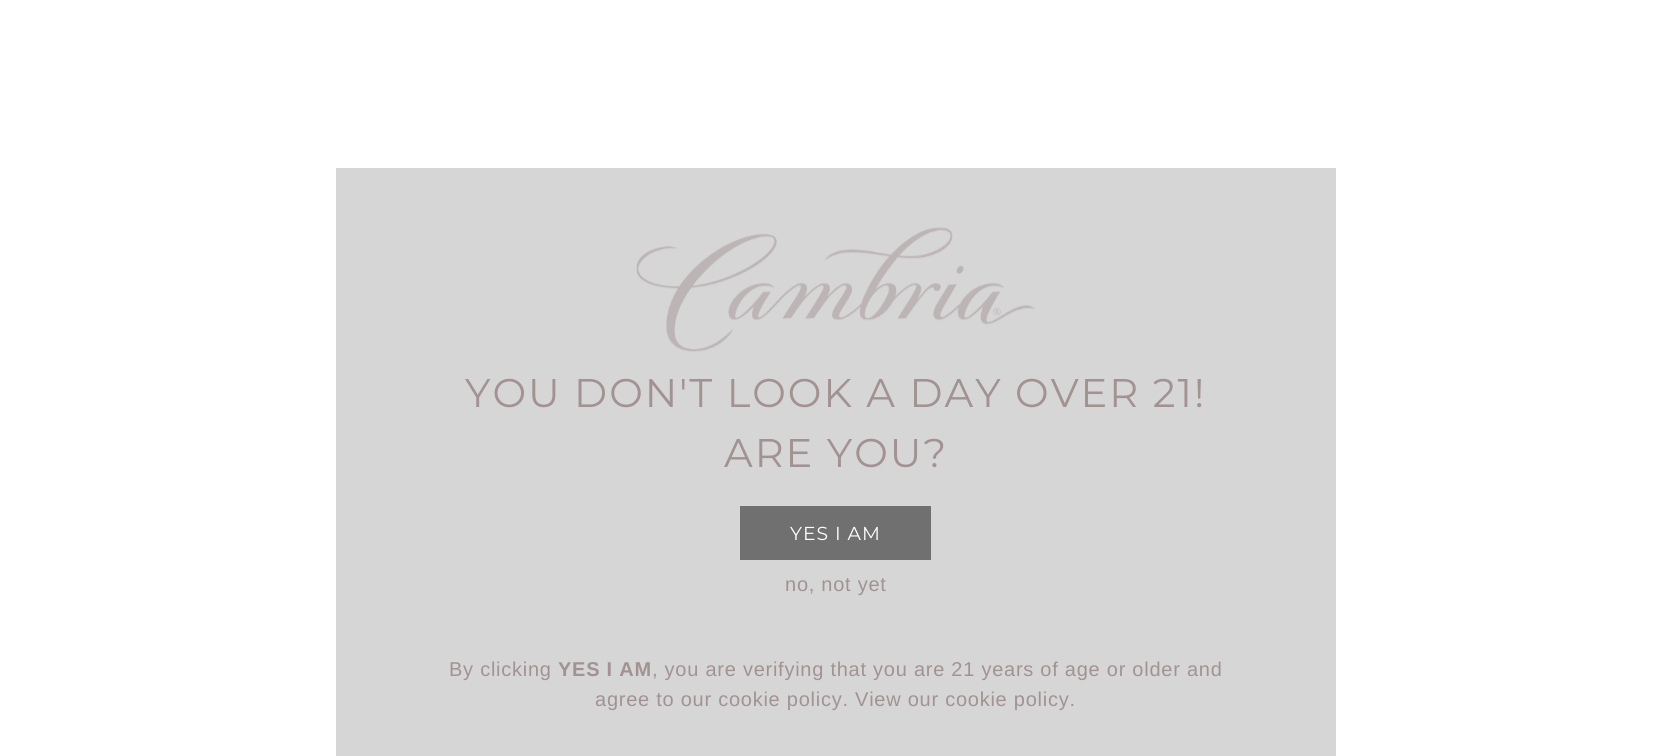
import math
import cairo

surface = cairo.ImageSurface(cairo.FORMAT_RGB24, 1671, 756)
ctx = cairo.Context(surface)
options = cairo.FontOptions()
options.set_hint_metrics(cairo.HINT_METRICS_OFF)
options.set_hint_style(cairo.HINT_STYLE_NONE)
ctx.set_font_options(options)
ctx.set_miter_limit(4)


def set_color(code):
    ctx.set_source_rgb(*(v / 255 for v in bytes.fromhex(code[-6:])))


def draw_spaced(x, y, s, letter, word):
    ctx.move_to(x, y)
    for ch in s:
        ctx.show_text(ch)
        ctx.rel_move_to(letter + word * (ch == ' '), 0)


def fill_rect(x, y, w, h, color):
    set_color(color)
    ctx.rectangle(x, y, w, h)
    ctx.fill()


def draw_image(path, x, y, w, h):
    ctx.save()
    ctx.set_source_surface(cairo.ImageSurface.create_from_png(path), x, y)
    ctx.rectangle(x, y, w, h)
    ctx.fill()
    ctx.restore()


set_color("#ffffff")
ctx.paint()
fill_rect(336, 168, 1000, 588, "#d6d6d6")
draw_image("assets/img1.png", 636, 227, 399, 125)
ctx.select_font_face("Montserrat")
ctx.set_font_size(40)
set_color("#a29292")
draw_spaced(465, 407, "YOU DON'T LOOK A DAY OVER 21!", 2, 0)
draw_spaced(724, 467, "ARE YOU?", 2, 0)
fill_rect(740, 506, 191, 54, "#707070")
ctx.set_font_size(18.75)
set_color("#ffffff")
draw_spaced(790, 540, "YES I AM", 1, 0)
ctx.select_font_face("Liberation Sans")
ctx.set_font_size(20)
set_color("#a29292")
draw_spaced(785, 591, "no, not yet", 0.75, 0)
draw_spaced(449, 676, "By clicking", 0.75, 0)
ctx.select_font_face("Liberation Sans", cairo.FONT_SLANT_NORMAL, cairo.FONT_WEIGHT_BOLD)
draw_spaced(558, 676, "YES I AM", 0.75, 0)
ctx.select_font_face("Liberation Sans")
draw_spaced(652, 676, ", you are verifying that you are 21 years of age or older and", 0.75, 0)
draw_spaced(595, 706, "agree to our cookie policy. View our cookie policy.", 0.75, 0)
surface.write_to_png("output.png")
